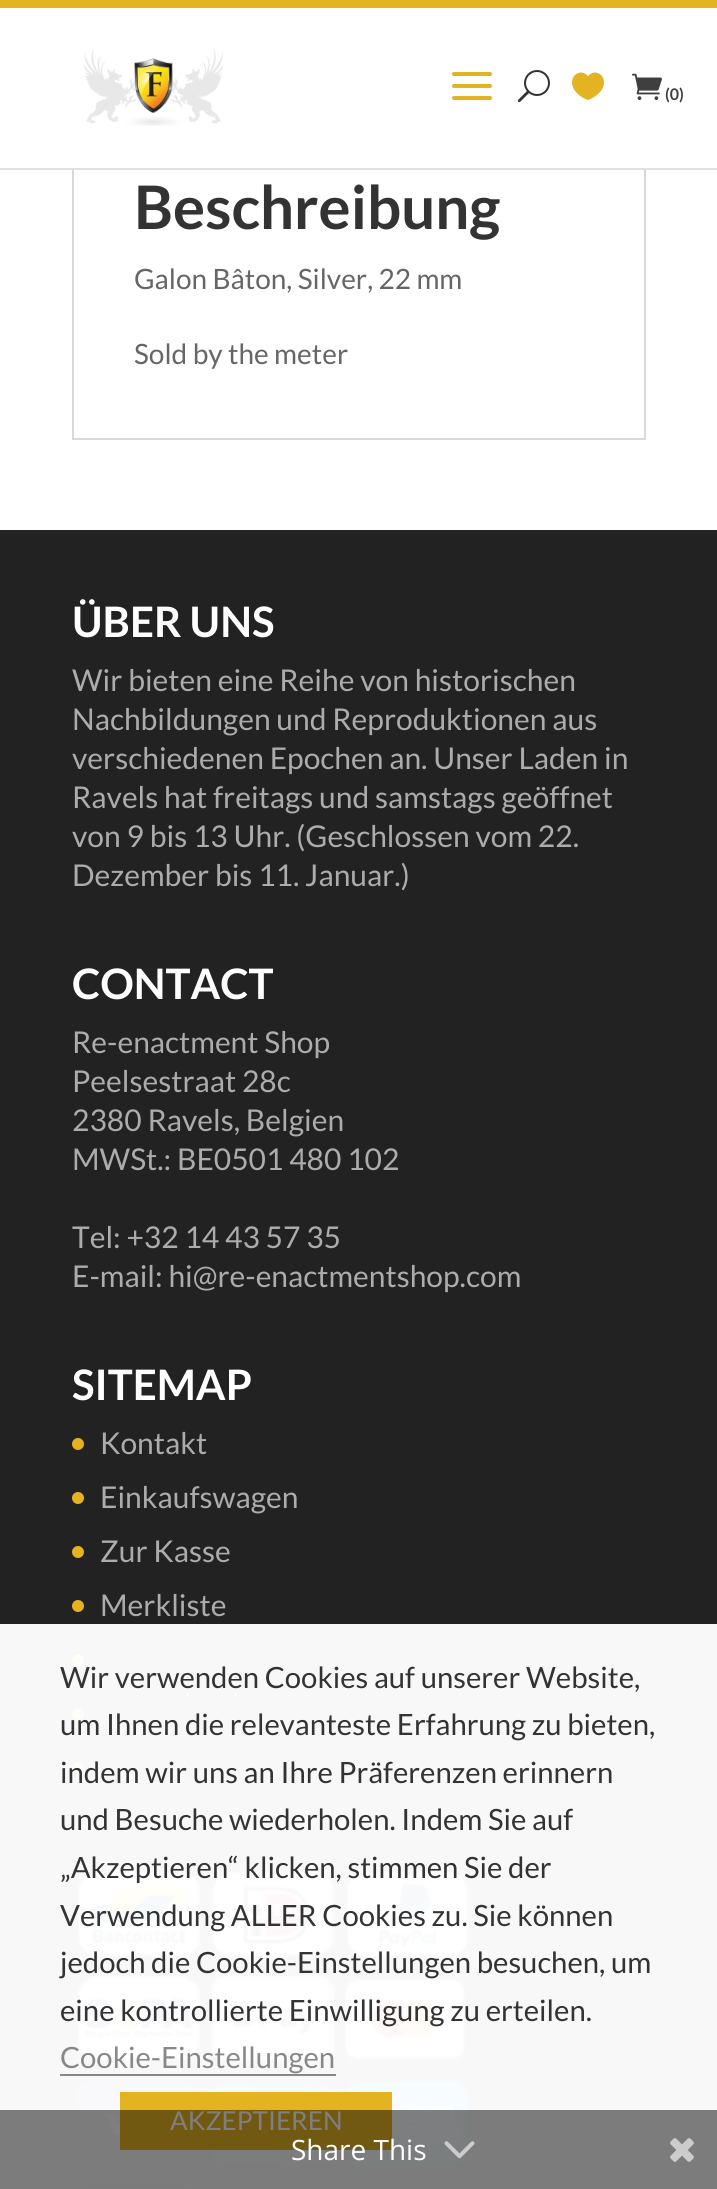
import math
import cairo

surface = cairo.ImageSurface(cairo.FORMAT_RGB24, 717, 2189)
ctx = cairo.Context(surface)
options = cairo.FontOptions()
options.set_hint_metrics(cairo.HINT_METRICS_OFF)
options.set_hint_style(cairo.HINT_STYLE_NONE)
ctx.set_font_options(options)
ctx.set_miter_limit(4)


def set_color(code):
    ctx.set_source_rgb(*(v / 255 for v in bytes.fromhex(code[-6:])))


def draw_text(x, y, s, family, size, color, bold=False, italic=False):
    ctx.select_font_face(family, cairo.FONT_SLANT_ITALIC if italic else cairo.FONT_SLANT_NORMAL, cairo.FONT_WEIGHT_BOLD if bold else cairo.FONT_WEIGHT_NORMAL)
    ctx.set_font_size(size)
    set_color(color)
    ctx.move_to(x, y)
    ctx.show_text(s)


def fill_rect(x, y, w, h, color):
    set_color(color)
    ctx.rectangle(x, y, w, h)
    ctx.fill()


def draw_image(path, x, y, w, h):
    ctx.save()
    ctx.set_source_surface(cairo.ImageSurface.create_from_png(path), x, y)
    ctx.rectangle(x, y, w, h)
    ctx.fill()
    ctx.restore()


set_color("#ffffff")
ctx.paint()
ctx.rectangle(73, -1, 572, 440)
set_color("#d9d9d9")
ctx.stroke()
fill_rect(72, 8, 574, 160, "#ffffff")
fill_rect(0, 168, 717, 2, "#e1e1e1")
fill_rect(0, 0, 717, 8, "#e4b322")
draw_image("assets/img1.png", 84, 48, 139, 78)
draw_image("assets/img2.png", 452, 72, 40, 28)
draw_image("assets/img3.png", 517, 70, 33, 33)
draw_image("assets/img4.png", 572, 72, 32, 28)
draw_image("assets/img5.png", 632, 73, 30, 27)
draw_text(665, 100, "(0)", "Lato", 16, "#3f3f3f", bold=True)
draw_text(134, 229, "Beschreibung", "Lato", 60, "#333333", bold=True)
draw_text(134, 289, "Galon Bâton, Silver, 22 mm", "Lato", 28, "#666666")
draw_text(134, 364, "Sold by the meter", "Lato", 28, "#666666")
fill_rect(0, 530, 717, 1094, "#222222")
fill_rect(0, 1624, 717, 565, "#f8f8f8")
draw_text(72, 637, "ÜBER UNS", "Lato", 42, "#ffffff", bold=True)
draw_text(72, 691, "Wir bieten eine Reihe von historischen", "Lato", 30, "#acacac")
draw_text(72, 730, "Nachbildungen und Reproduktionen aus", "Lato", 30, "#acacac")
draw_text(72, 769, "verschiedenen Epochen an. Unser Laden in", "Lato", 30, "#acacac")
draw_text(72, 808, "Ravels hat freitags und samstags geöffnet", "Lato", 30, "#acacac")
draw_text(72, 847, "von 9 bis 13 Uhr. (Geschlossen vom 22.", "Lato", 30, "#acacac")
draw_text(72, 886, "Dezember bis 11. Januar.)", "Lato", 30, "#acacac")
draw_text(72, 999, "CONTACT", "Lato", 42, "#ffffff", bold=True)
draw_text(72, 1053, "Re-enactment Shop", "Lato", 30, "#acacac")
draw_text(72, 1092, "Peelsestraat 28c", "Lato", 30, "#acacac")
draw_text(72, 1131, "2380 Ravels, Belgien", "Lato", 30, "#acacac")
draw_text(72, 1170, "MWSt.: BE0501 480 102", "Lato", 30, "#acacac")
draw_text(72, 1248, "Tel: +32 14 43 57 35", "Lato", 30, "#acacac")
draw_text(72, 1287, "E-mail: hi@re-enactmentshop.com", "Lato", 30, "#acacac")
draw_text(72, 1400, "SITEMAP", "Lato", 42, "#ffffff", bold=True)
set_color("#e4b322")
ctx.new_path()
ctx.arc(78, 1444, 6, 0, 2 * math.pi)
ctx.fill()
draw_text(100, 1454, "Kontakt", "Lato", 30, "#acacac")
set_color("#e4b322")
ctx.new_path()
ctx.arc(78, 1498, 6, 0, 2 * math.pi)
ctx.fill()
draw_text(100, 1508, "Einkaufswagen", "Lato", 30, "#acacac")
set_color("#e4b322")
ctx.new_path()
ctx.arc(78, 1552, 6, 0, 2 * math.pi)
ctx.fill()
draw_text(100, 1562, "Zur Kasse", "Lato", 30, "#acacac")
set_color("#e4b322")
ctx.new_path()
ctx.arc(78, 1606, 6, 0, 2 * math.pi)
ctx.fill()
draw_text(100, 1616, "Merkliste", "Lato", 30, "#acacac")
set_color("#fefdf8")
ctx.new_path()
ctx.arc(78, 1660, 6, 0, 2 * math.pi)
ctx.fill()
ctx.arc(78, 1714, 6, 0, 2 * math.pi)
ctx.fill()
ctx.arc(78, 1768, 6, 0, 2 * math.pi)
ctx.fill()
draw_image("assets/img6.png", 75, 1871, 394, 318)
draw_text(60, 1688, "Wir verwenden Cookies auf unserer Website,", "Lato", 29.3, "#333333")
draw_text(60, 1735, "um Ihnen die relevanteste Erfahrung zu bieten,", "Lato", 29.3, "#333333")
draw_text(60, 1783, "indem wir uns an Ihre Präferenzen erinnern", "Lato", 29.3, "#333333")
draw_text(60, 1830, "und Besuche wiederholen. Indem Sie auf", "Lato", 29.3, "#333333")
draw_text(60, 1878, "„Akzeptieren“ klicken, stimmen Sie der", "Lato", 29.3, "#333333")
draw_text(60, 1926, "Verwendung ALLER Cookies zu. Sie können", "Lato", 29.3, "#333333")
draw_text(60, 1973, "jedoch die Cookie-Einstellungen besuchen, um", "Lato", 29.3, "#333333")
draw_text(60, 2021, "eine kontrollierte Einwilligung zu erteilen.", "Lato", 29.3, "#333333")
draw_text(60, 2068, "Cookie-Einstellungen", "Lato", 29.3, "#898888")
fill_rect(60, 2074, 276, 2, "#898888")
fill_rect(120, 2092, 272, 58, "#e4b322")
draw_text(170, 2130, "AKZEPTIEREN", "Lato", 26, "#ffffff")
ctx.set_source_rgba(0, 0, 0, 0.5)
ctx.rectangle(0, 2110, 717, 79)
ctx.fill()
draw_text(291, 2160, "Share This", "Open Sans", 28, "#ffffff")
draw_image("assets/img7.png", 444, 2141, 31, 18)
draw_image("assets/img8.png", 670, 2138, 24, 24)
surface.write_to_png("output.png")
